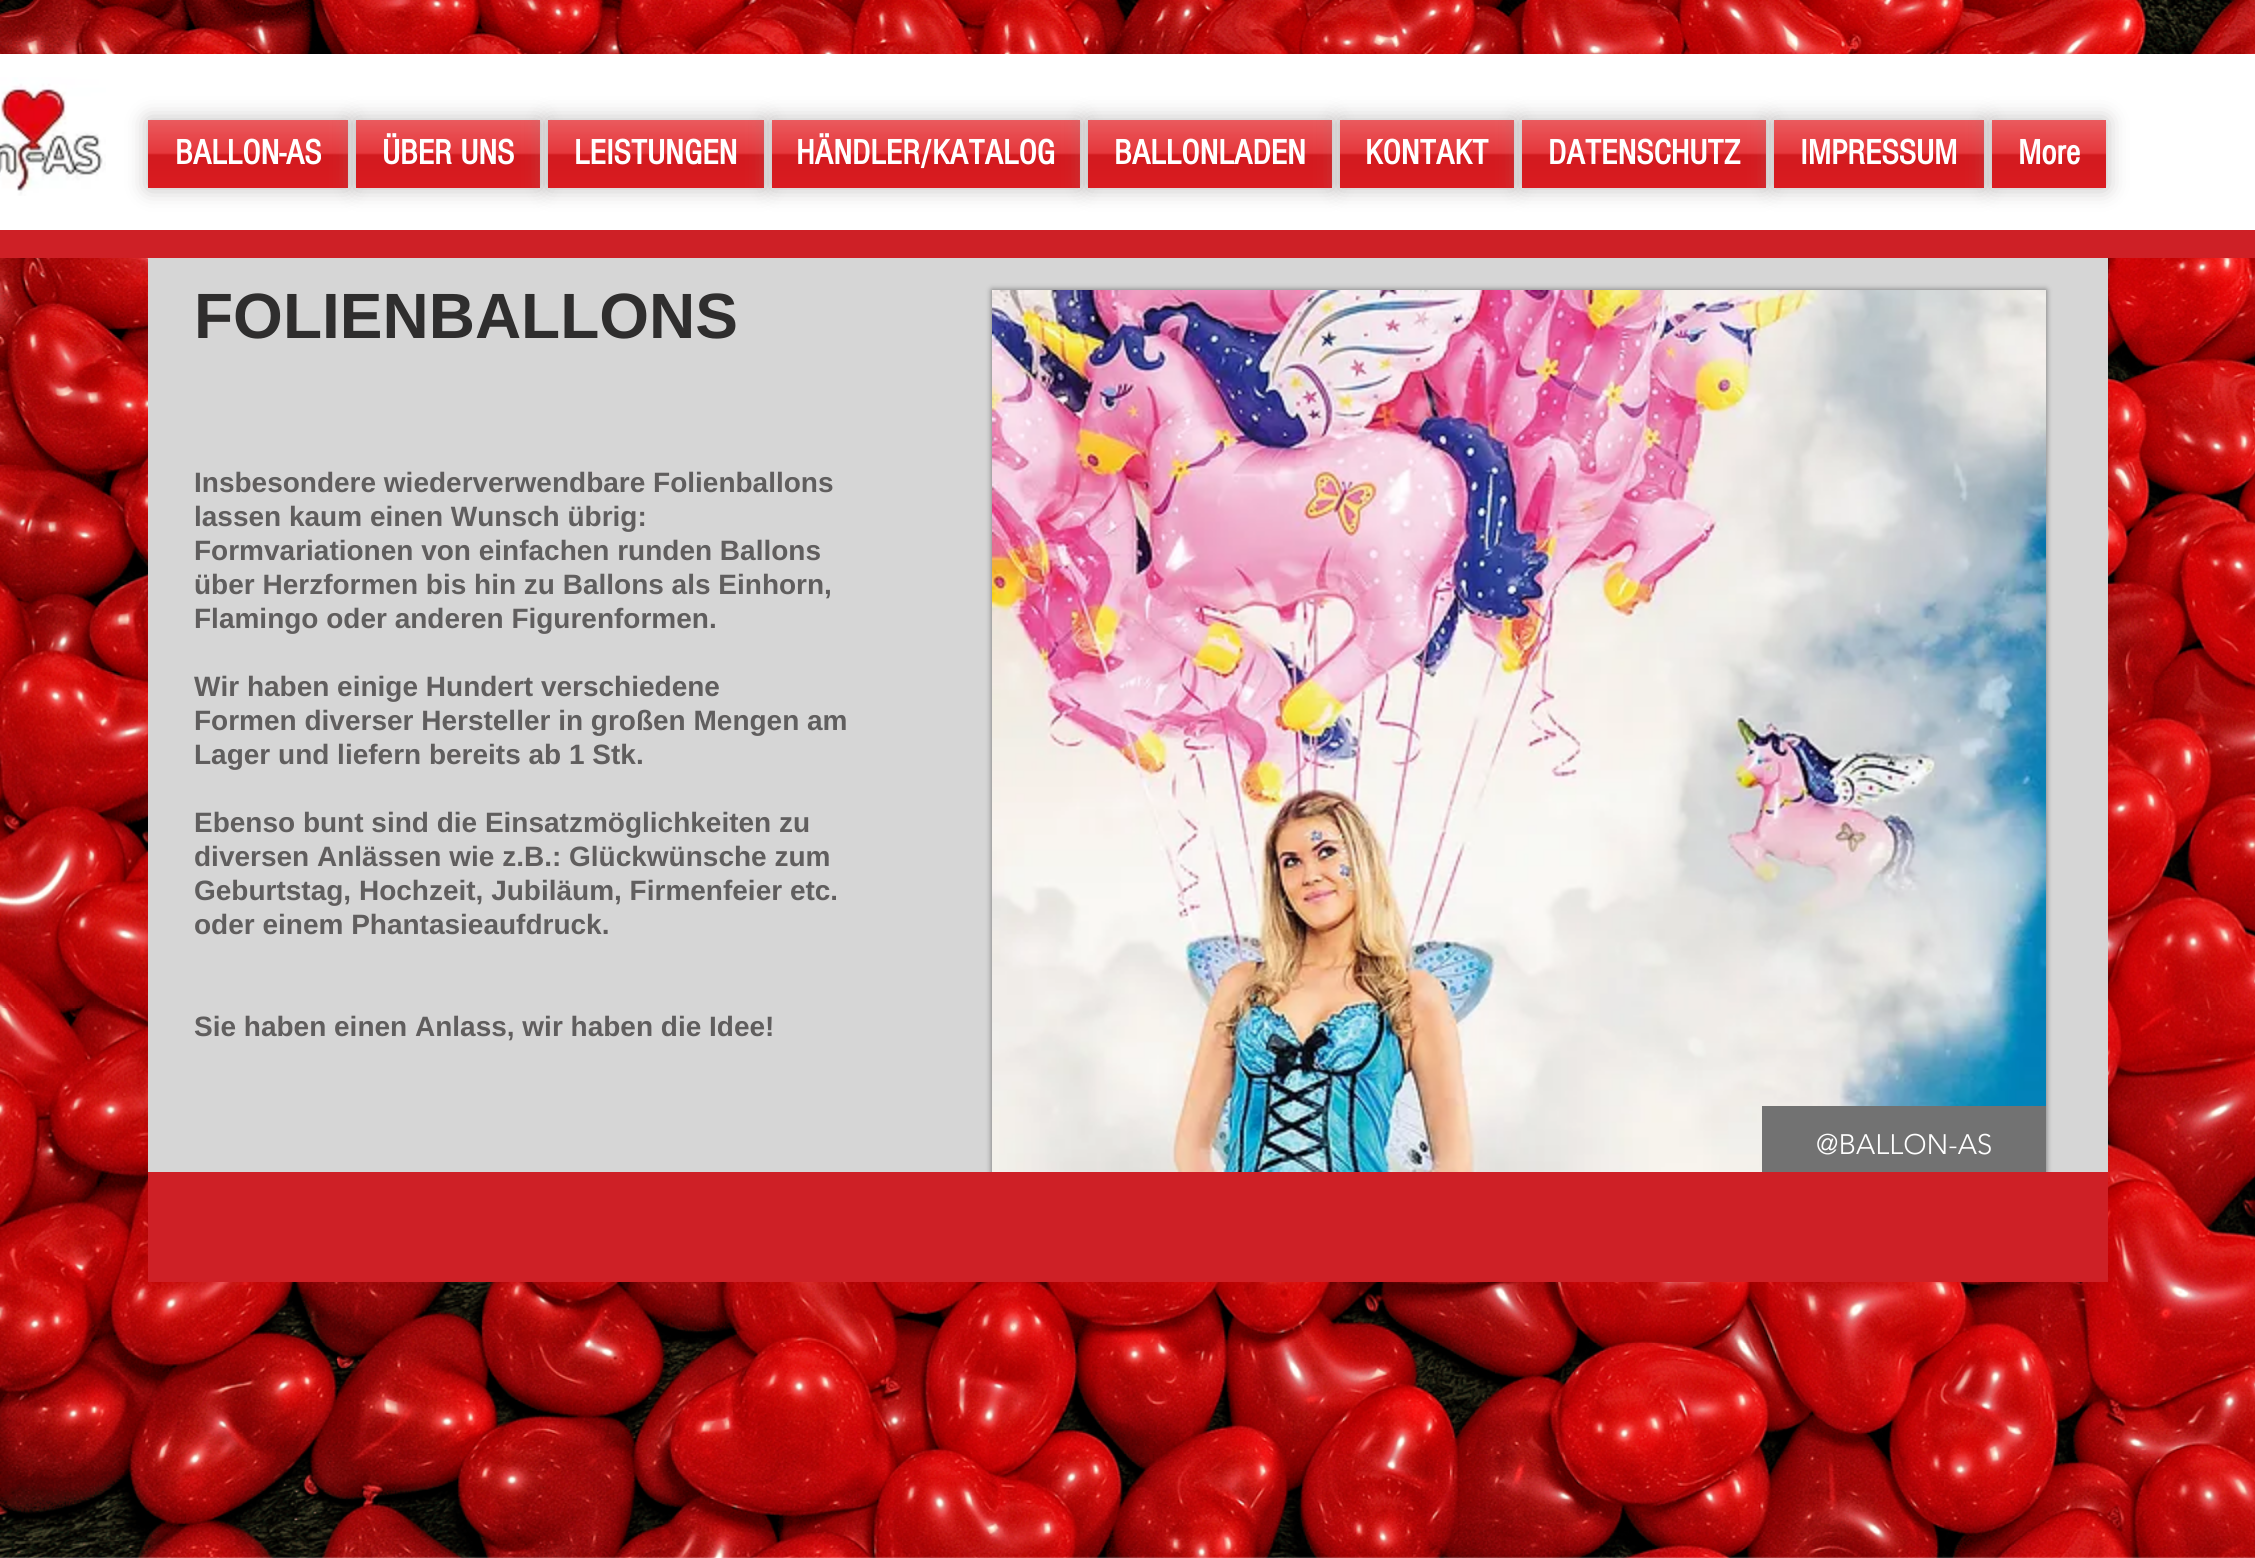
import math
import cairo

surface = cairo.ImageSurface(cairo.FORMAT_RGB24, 2255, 1558)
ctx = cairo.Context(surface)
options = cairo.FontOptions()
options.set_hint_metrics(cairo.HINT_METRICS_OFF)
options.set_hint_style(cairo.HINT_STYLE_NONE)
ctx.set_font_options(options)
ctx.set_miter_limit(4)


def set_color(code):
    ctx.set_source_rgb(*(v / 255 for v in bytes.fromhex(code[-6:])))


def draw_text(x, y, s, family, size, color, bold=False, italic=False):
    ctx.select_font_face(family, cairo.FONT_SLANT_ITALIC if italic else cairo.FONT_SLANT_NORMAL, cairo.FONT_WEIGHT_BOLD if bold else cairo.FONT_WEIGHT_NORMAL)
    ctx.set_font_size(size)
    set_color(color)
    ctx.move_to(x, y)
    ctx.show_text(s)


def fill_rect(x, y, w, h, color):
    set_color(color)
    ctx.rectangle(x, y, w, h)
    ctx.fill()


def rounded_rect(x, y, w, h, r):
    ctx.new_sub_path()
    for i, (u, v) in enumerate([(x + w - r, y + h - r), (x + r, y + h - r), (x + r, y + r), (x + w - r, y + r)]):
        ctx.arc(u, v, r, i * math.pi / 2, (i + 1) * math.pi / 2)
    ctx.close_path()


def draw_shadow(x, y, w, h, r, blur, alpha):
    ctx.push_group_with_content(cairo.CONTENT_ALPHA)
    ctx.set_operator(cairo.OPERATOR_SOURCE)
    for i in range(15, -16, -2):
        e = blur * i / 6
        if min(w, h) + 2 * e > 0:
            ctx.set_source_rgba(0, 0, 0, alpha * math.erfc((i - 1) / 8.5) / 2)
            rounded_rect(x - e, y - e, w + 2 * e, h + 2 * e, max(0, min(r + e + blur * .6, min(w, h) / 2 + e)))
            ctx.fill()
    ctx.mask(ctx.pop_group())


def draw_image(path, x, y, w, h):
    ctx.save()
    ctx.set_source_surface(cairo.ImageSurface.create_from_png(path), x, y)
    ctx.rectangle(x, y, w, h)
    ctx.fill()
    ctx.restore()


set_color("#ffffff")
ctx.paint()
draw_image("assets/img1.png", 0, 0, 2255, 1558)
fill_rect(0, 54, 2255, 176, "#ffffff")
draw_image("assets/img2.png", 0, 77, 106, 119)
set_color("#918d8d")
draw_shadow(148, 120, 200, 68, 0, 11, 0.6)
fill_rect(148, 120, 200, 68, "#e21c21")
draw_image("assets/img3.png", 148, 120, 200, 68)
draw_text(175, 164, "BALLON-AS", "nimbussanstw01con", 36, "#ffffff", bold=True)
set_color("#918d8d")
draw_shadow(356, 120, 184, 68, 0, 11, 0.6)
fill_rect(356, 120, 184, 68, "#e21c21")
draw_image("assets/img4.png", 356, 120, 184, 68)
draw_text(382, 164, "ÜBER UNS", "nimbussanstw01con", 36, "#ffffff", bold=True)
set_color("#918d8d")
draw_shadow(548, 120, 216, 68, 0, 11, 0.6)
fill_rect(548, 120, 216, 68, "#e21c21")
draw_image("assets/img5.png", 548, 120, 216, 68)
draw_text(574, 164, "LEISTUNGEN", "nimbussanstw01con", 36, "#ffffff", bold=True)
set_color("#918d8d")
draw_shadow(772, 120, 308, 68, 0, 11, 0.6)
fill_rect(772, 120, 308, 68, "#e21c21")
draw_image("assets/img6.png", 772, 120, 308, 68)
draw_text(796, 164, "HÄNDLER/KATALOG", "nimbussanstw01con", 36, "#ffffff", bold=True)
set_color("#918d8d")
draw_shadow(1088, 120, 244, 68, 0, 11, 0.6)
fill_rect(1088, 120, 244, 68, "#e21c21")
draw_image("assets/img7.png", 1088, 120, 244, 68)
draw_text(1114, 164, "BALLONLADEN", "nimbussanstw01con", 36, "#ffffff", bold=True)
set_color("#918d8d")
draw_shadow(1340, 120, 174, 68, 0, 11, 0.6)
fill_rect(1340, 120, 174, 68, "#e21c21")
draw_image("assets/img8.png", 1340, 120, 174, 68)
draw_text(1365, 164, "KONTAKT", "nimbussanstw01con", 36, "#ffffff", bold=True)
set_color("#918d8d")
draw_shadow(1522, 120, 244, 68, 0, 11, 0.6)
fill_rect(1522, 120, 244, 68, "#e21c21")
draw_image("assets/img7.png", 1522, 120, 244, 68)
draw_text(1548, 164, "DATENSCHUTZ", "nimbussanstw01con", 36, "#ffffff", bold=True)
set_color("#918d8d")
draw_shadow(1774, 120, 210, 68, 0, 11, 0.6)
fill_rect(1774, 120, 210, 68, "#e21c21")
draw_image("assets/img9.png", 1774, 120, 210, 68)
draw_text(1800, 164, "IMPRESSUM", "nimbussanstw01con", 36, "#ffffff", bold=True)
set_color("#918d8d")
draw_shadow(1992, 120, 114, 68, 0, 11, 0.6)
fill_rect(1992, 120, 114, 68, "#e21c21")
draw_image("assets/img10.png", 1992, 120, 114, 68)
draw_text(2018, 164, "More", "nimbussanstw01con", 36, "#ffffff", bold=True)
fill_rect(148, 258, 1960, 914, "#d6d6d6")
fill_rect(0, 230, 2255, 28, "#ce2026")
draw_text(194, 338, "FOLIENBALLONS", "Liberation Sans", 64, "#2f2e2e", bold=True)
set_color("#000000")
draw_shadow(992, 290, 1054, 896, 0, 3, 0.5)
draw_image("assets/img11.png", 992, 290, 1054, 882)
draw_text(194, 492, "Insbesondere wiederverwendbare Folienballons", "Liberation Sans", 28, "#605e5e", bold=True)
draw_text(194, 526, "lassen kaum einen Wunsch übrig:", "Liberation Sans", 28, "#605e5e", bold=True)
draw_text(194, 560, "Formvariationen von einfachen runden Ballons", "Liberation Sans", 28, "#605e5e", bold=True)
draw_text(194, 594, "über Herzformen bis hin zu Ballons als Einhorn,", "Liberation Sans", 28, "#605e5e", bold=True)
draw_text(194, 628, "Flamingo oder anderen Figurenformen.", "Liberation Sans", 28, "#605e5e", bold=True)
draw_text(194, 696, "Wir haben einige Hundert verschiedene", "Liberation Sans", 28, "#605e5e", bold=True)
draw_text(194, 730, "Formen diverser Hersteller in großen Mengen am", "Liberation Sans", 28, "#605e5e", bold=True)
draw_text(194, 764, "Lager und liefern bereits ab 1 Stk.", "Liberation Sans", 28, "#605e5e", bold=True)
draw_text(194, 832, "Ebenso bunt sind die Einsatzmöglichkeiten zu", "Liberation Sans", 28, "#605e5e", bold=True)
draw_text(194, 866, "diversen Anlässen wie z.B.: Glückwünsche zum", "Liberation Sans", 28, "#605e5e", bold=True)
draw_text(194, 900, "Geburtstag, Hochzeit, Jubiläum, Firmenfeier etc.", "Liberation Sans", 28, "#605e5e", bold=True)
draw_text(194, 934, "oder einem Phantasieaufdruck.", "Liberation Sans", 28, "#605e5e", bold=True)
draw_text(194, 1036, "Sie haben einen Anlass, wir haben die Idee!", "Liberation Sans", 28, "#605e5e", bold=True)
fill_rect(1762, 1106, 284, 66, "#727272")
draw_text(1816, 1154, "@BALLON-AS", "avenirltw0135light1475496 Light", 28, "#ffffff")
fill_rect(148, 1172, 1960, 110, "#ce2026")
surface.write_to_png("output.png")
